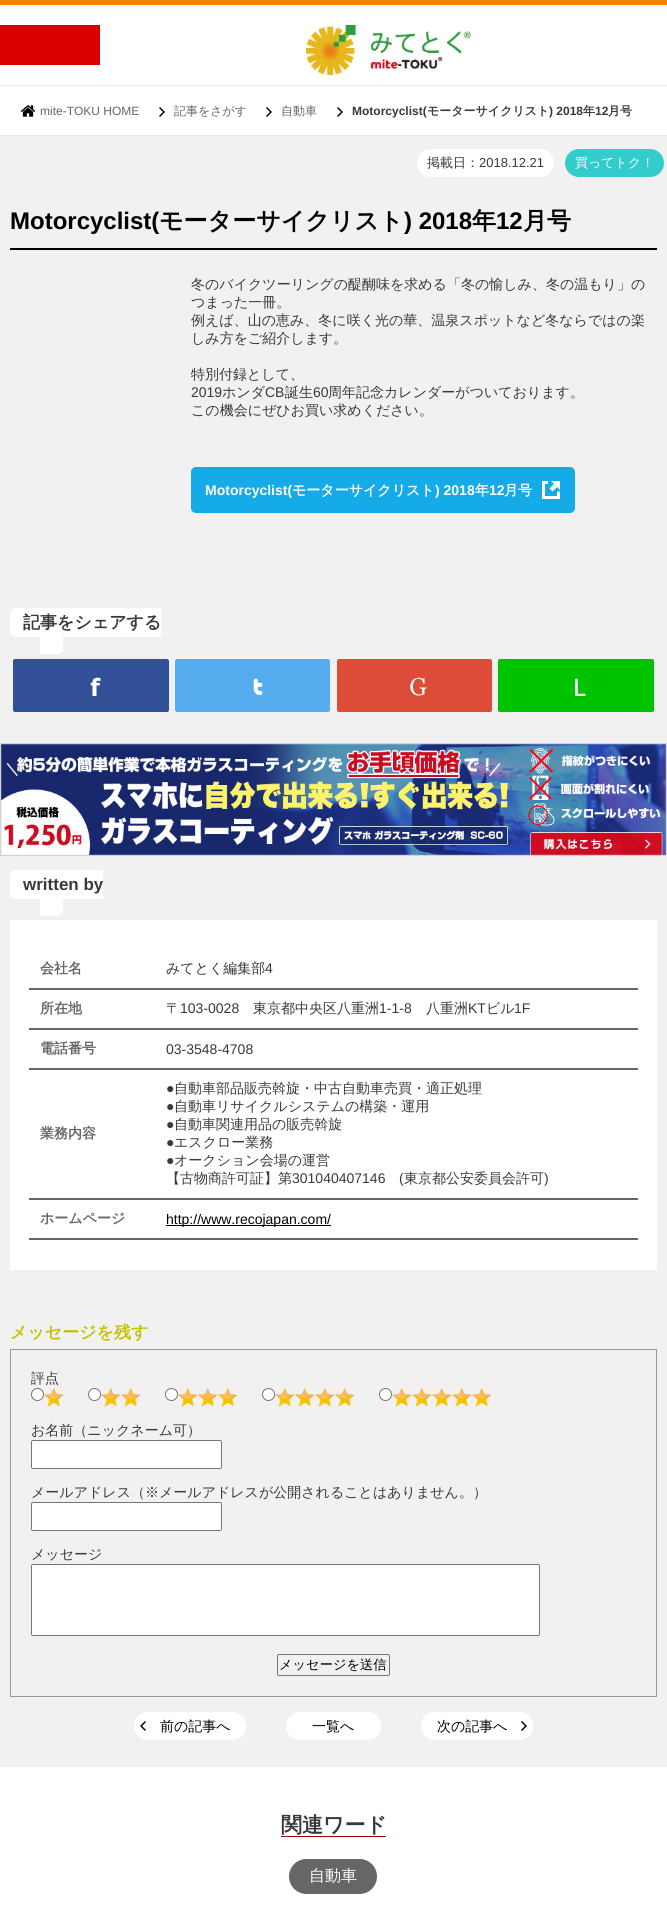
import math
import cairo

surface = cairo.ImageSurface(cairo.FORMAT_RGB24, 667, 1919)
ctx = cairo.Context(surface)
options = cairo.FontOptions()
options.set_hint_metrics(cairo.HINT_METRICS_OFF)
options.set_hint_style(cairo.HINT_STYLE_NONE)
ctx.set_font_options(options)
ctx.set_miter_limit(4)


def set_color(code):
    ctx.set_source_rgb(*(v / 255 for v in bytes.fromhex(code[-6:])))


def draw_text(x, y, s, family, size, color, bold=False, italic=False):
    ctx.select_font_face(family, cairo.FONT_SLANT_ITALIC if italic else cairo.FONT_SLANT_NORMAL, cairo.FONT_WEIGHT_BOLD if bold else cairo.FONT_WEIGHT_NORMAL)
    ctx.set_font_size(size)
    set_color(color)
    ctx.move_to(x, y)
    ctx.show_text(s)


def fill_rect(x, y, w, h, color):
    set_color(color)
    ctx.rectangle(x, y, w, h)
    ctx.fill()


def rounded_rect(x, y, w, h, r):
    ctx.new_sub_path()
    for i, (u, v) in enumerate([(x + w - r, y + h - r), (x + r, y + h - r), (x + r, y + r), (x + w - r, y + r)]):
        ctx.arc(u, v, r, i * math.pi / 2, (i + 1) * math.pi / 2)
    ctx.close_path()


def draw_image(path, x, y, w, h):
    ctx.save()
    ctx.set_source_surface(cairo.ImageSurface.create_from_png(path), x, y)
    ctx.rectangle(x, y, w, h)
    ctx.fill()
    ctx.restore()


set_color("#ffffff")
ctx.paint()
fill_rect(0, 0, 667, 5, "#f08300")
fill_rect(0, 25, 100, 40, "#da0000")
draw_image("assets/img1.png", 306, 25, 165, 50)
fill_rect(0, 85, 667, 1, "#eaeaea")
fill_rect(0, 135, 667, 1, "#eaeaea")
draw_image("assets/img2.png", 20, 105, 16, 12)
draw_text(40, 115, "mite-TOKU HOME", "Liberation Sans", 12, "#666666")
draw_image("assets/img3.png", 159, 107, 6, 10)
draw_text(174, 115, "記事をさがす", "WenQuanYi Zen Hei Medium", 12, "#666666")
draw_image("assets/img3.png", 266, 107, 6, 10)
draw_text(281, 115, "自動車", "WenQuanYi Zen Hei Medium", 12, "#666666")
draw_image("assets/img3.png", 337, 107, 6, 10)
draw_text(352, 115, "Motorcyclist(", "Liberation Sans", 12, "#393939", bold=True)
draw_text(427, 115, "モーターサイクリスト", "WenQuanYi Zen Hei", 12, "#393939", bold=True)
draw_text(549, 115, ") 2018", "Liberation Sans", 12, "#393939", bold=True)
draw_text(583, 115, "年", "WenQuanYi Zen Hei", 12, "#393939", bold=True)
draw_text(595, 115, "12", "Liberation Sans", 12, "#393939", bold=True)
draw_text(608, 115, "月号", "WenQuanYi Zen Hei", 12, "#393939", bold=True)
fill_rect(0, 136, 667, 1631, "#f1f1f1")
set_color("#ffffff")
rounded_rect(417, 149, 137, 28, 14)
ctx.fill()
draw_text(427, 167, "掲載日：", "WenQuanYi Zen Hei Medium", 13, "#393939")
draw_text(479, 167, "2018.12.21", "Liberation Sans", 13, "#393939")
set_color("#33cccc")
rounded_rect(565, 149, 99, 28, 14)
ctx.fill()
draw_text(575, 167, "買ってトク！", "WenQuanYi Zen Hei Medium", 13, "#ffffff")
fill_rect(10, 248, 647, 2, "#000000")
draw_text(10, 229, "Motorcyclist(", "Liberation Sans", 24, "#000000", bold=True)
draw_text(159, 229, "モーターサイクリスト", "WenQuanYi Zen Hei", 24, "#000000", bold=True)
draw_text(404, 229, ") 2018", "Liberation Sans", 24, "#000000", bold=True)
draw_text(472, 229, "年", "WenQuanYi Zen Hei", 24, "#000000", bold=True)
draw_text(496, 229, "12", "Liberation Sans", 24, "#000000", bold=True)
draw_text(523, 229, "月号", "WenQuanYi Zen Hei", 24, "#000000", bold=True)
draw_text(191, 289, "冬のバイクツーリングの醍醐味を求める「冬の愉しみ、冬の温もり」の", "WenQuanYi Zen Hei Medium", 14, "#393939")
draw_text(191, 307, "つまった一冊。", "WenQuanYi Zen Hei Medium", 14, "#393939")
draw_text(191, 325, "例えば、山の恵み、冬に咲く光の華、温泉スポットなど冬ならではの楽", "WenQuanYi Zen Hei Medium", 14, "#393939")
draw_text(191, 343, "しみ方をご紹介します。", "WenQuanYi Zen Hei Medium", 14, "#393939")
draw_text(191, 379, "特別付録として、", "WenQuanYi Zen Hei Medium", 14, "#393939")
draw_text(191, 397, "2019", "Liberation Sans", 14, "#393939")
draw_text(222, 397, "ホンダ", "WenQuanYi Zen Hei Medium", 14, "#393939")
draw_text(265, 397, "CB", "Liberation Sans", 14, "#393939")
draw_text(285, 397, "誕生", "WenQuanYi Zen Hei Medium", 14, "#393939")
draw_text(313, 397, "60", "Liberation Sans", 14, "#393939")
draw_text(328, 397, "周年記念カレンダーがついております。", "WenQuanYi Zen Hei Medium", 14, "#393939")
draw_text(191, 415, "この機会にぜひお買い求めください。", "WenQuanYi Zen Hei Medium", 14, "#393939")
set_color("#15aae8")
rounded_rect(191, 467, 384, 46, 5)
ctx.fill()
draw_image("assets/img4.png", 542, 481, 18, 18)
draw_text(205, 495, "Motorcyclist(", "Liberation Sans", 14, "#ffffff", bold=True)
draw_text(292, 495, "モーターサイクリスト", "WenQuanYi Zen Hei", 14, "#ffffff", bold=True)
draw_text(435, 495, ") 2018", "Liberation Sans", 14, "#ffffff", bold=True)
draw_text(475, 495, "年", "WenQuanYi Zen Hei", 14, "#ffffff", bold=True)
draw_text(489, 495, "12", "Liberation Sans", 14, "#ffffff", bold=True)
draw_text(504, 495, "月号", "WenQuanYi Zen Hei", 14, "#ffffff", bold=True)
ctx.new_path()
ctx.move_to(16, 608)
ctx.line_to(161, 608)
ctx.line_to(161, 637)
ctx.line_to(16, 637)
ctx.curve_to(12.5, 637, 10, 634.5, 10, 631)
ctx.line_to(10, 614)
ctx.curve_to(10, 610.5, 12.5, 608, 16, 608)
ctx.close_path()
ctx.fill()
draw_text(23, 628, "記事をシェアする", "WenQuanYi Zen Hei", 17, "#393939", bold=True)
set_color("#ffffff")
ctx.new_path()
ctx.move_to(40, 632)
ctx.line_to(57, 632)
ctx.curve_to(60.5, 632, 63, 634.5, 63, 638)
ctx.line_to(63, 648)
ctx.curve_to(63, 651.5, 60.5, 654, 57, 654)
ctx.line_to(40, 654)
ctx.close_path()
ctx.fill()
set_color("#315096")
rounded_rect(13, 659, 156, 53, 2)
ctx.fill()
draw_image("assets/img5.png", 90, 677, 11, 19)
set_color("#55acee")
rounded_rect(175, 659, 155, 53, 2)
ctx.fill()
draw_image("assets/img6.png", 253, 678, 10, 17)
set_color("#dd4b39")
rounded_rect(337, 659, 155, 53, 2)
ctx.fill()
draw_image("assets/img7.png", 410, 677, 17, 19)
set_color("#00c300")
rounded_rect(498, 659, 156, 53, 2)
ctx.fill()
draw_image("assets/img8.png", 575, 678, 11, 18)
draw_image("assets/img9.png", 0, 743, 667, 113)
set_color("#ffffff")
ctx.new_path()
ctx.move_to(16, 870)
ctx.line_to(103, 870)
ctx.line_to(103, 899)
ctx.line_to(16, 899)
ctx.curve_to(12.5, 899, 10, 896.5, 10, 893)
ctx.line_to(10, 876)
ctx.curve_to(10, 872.5, 12.5, 870, 16, 870)
ctx.close_path()
ctx.fill()
draw_text(23, 890, "written by", "Liberation Sans", 17, "#393939", bold=True)
set_color("#ffffff")
ctx.new_path()
ctx.move_to(40, 894)
ctx.line_to(57, 894)
ctx.curve_to(60.5, 894, 63, 896.5, 63, 900)
ctx.line_to(63, 910)
ctx.curve_to(63, 913.5, 60.5, 916, 57, 916)
ctx.line_to(40, 916)
ctx.close_path()
ctx.fill()
fill_rect(10, 920, 647, 350, "#ffffff")
draw_text(40, 973, "会社名", "WenQuanYi Zen Hei", 14, "#666666", bold=True)
fill_rect(29, 988, 609, 2, "#666666")
draw_text(166, 973, "みてとく編集部", "WenQuanYi Zen Hei Medium", 14, "#393939")
draw_text(265, 973, "4", "Liberation Sans", 14, "#393939")
draw_text(40, 1013, "所在地", "WenQuanYi Zen Hei", 14, "#666666", bold=True)
fill_rect(29, 1028, 609, 2, "#666666")
draw_text(166, 1013, "〒", "WenQuanYi Zen Hei Medium", 14, "#393939")
draw_text(180, 1013, "103-0028", "Liberation Sans", 14, "#393939")
draw_text(253, 1013, "東京都中央区八重洲", "WenQuanYi Zen Hei Medium", 14, "#393939")
draw_text(379, 1013, "1-1-8", "Liberation Sans", 14, "#393939")
draw_text(426, 1013, "八重洲", "WenQuanYi Zen Hei Medium", 14, "#393939")
draw_text(468, 1013, "KT", "Liberation Sans", 14, "#393939")
draw_text(486, 1013, "ビル", "WenQuanYi Zen Hei Medium", 14, "#393939")
draw_text(514, 1013, "1F", "Liberation Sans", 14, "#393939")
draw_text(40, 1053, "電話番号", "WenQuanYi Zen Hei", 14, "#666666", bold=True)
fill_rect(29, 1068, 609, 2, "#666666")
draw_text(166, 1054, "03-3548-4708", "Liberation Sans", 14, "#393939")
draw_text(40, 1138, "業務内容", "WenQuanYi Zen Hei", 14, "#666666", bold=True)
fill_rect(29, 1198, 609, 2, "#666666")
draw_text(166, 1093, "●", "Liberation Sans", 14, "#393939")
draw_text(174, 1093, "自動車部品販売斡旋・中古自動車売買・適正処理", "WenQuanYi Zen Hei Medium", 14, "#393939")
draw_text(166, 1111, "●", "Liberation Sans", 14, "#393939")
draw_text(174, 1111, "自動車リサイクルシステムの構築・運用", "WenQuanYi Zen Hei Medium", 14, "#393939")
draw_text(166, 1129, "●", "Liberation Sans", 14, "#393939")
draw_text(174, 1129, "自動車関連用品の販売斡旋", "WenQuanYi Zen Hei Medium", 14, "#393939")
draw_text(166, 1147, "●", "Liberation Sans", 14, "#393939")
draw_text(174, 1147, "エスクロー業務", "WenQuanYi Zen Hei Medium", 14, "#393939")
draw_text(166, 1165, "●", "Liberation Sans", 14, "#393939")
draw_text(174, 1165, "オークション会場の運営", "WenQuanYi Zen Hei Medium", 14, "#393939")
draw_text(166, 1183, "【古物商許可証】第", "WenQuanYi Zen Hei Medium", 14, "#393939")
draw_text(292, 1183, "301040407146", "Liberation Sans", 14, "#393939")
draw_text(399, 1183, "(", "Liberation Sans", 14, "#393939")
draw_text(404, 1183, "東京都公安委員会許可", "WenQuanYi Zen Hei Medium", 14, "#393939")
draw_text(544, 1183, ")", "Liberation Sans", 14, "#393939")
draw_text(40, 1223, "ホームページ", "WenQuanYi Zen Hei", 14, "#666666", bold=True)
fill_rect(29, 1238, 609, 2, "#666666")
fill_rect(166, 1225, 165, 1, "#000000")
draw_text(166, 1224, "http://www.recojapan.com/", "Liberation Sans", 14, "#000000")
draw_text(10, 1338, "メッセージを残す", "WenQuanYi Zen Hei", 17, "#c4c200", bold=True)
ctx.rectangle(10.5, 1349.5, 646, 347)
set_color("#999999")
ctx.set_line_width(1)
ctx.stroke()
draw_text(31, 1383, "評点", "WenQuanYi Zen Hei Medium", 14, "#393939")
set_color("#ffffff")
ctx.new_path()
ctx.arc(37.5, 1394.5, 6, 0, 2 * math.pi)
ctx.fill_preserve()
set_color("#767676")
ctx.stroke()
draw_image("assets/img10.png", 44, 1388, 20, 19)
set_color("#ffffff")
ctx.arc(94.5, 1394.5, 6, 0, 2 * math.pi)
ctx.fill_preserve()
set_color("#767676")
ctx.stroke()
draw_image("assets/img10.png", 101, 1388, 20, 19)
draw_image("assets/img10.png", 121, 1388, 20, 19)
set_color("#ffffff")
ctx.arc(171.5, 1394.5, 6, 0, 2 * math.pi)
ctx.fill_preserve()
set_color("#767676")
ctx.stroke()
draw_image("assets/img10.png", 178, 1388, 20, 19)
draw_image("assets/img10.png", 198, 1388, 20, 19)
draw_image("assets/img10.png", 218, 1388, 20, 19)
set_color("#ffffff")
ctx.arc(268.5, 1394.5, 6, 0, 2 * math.pi)
ctx.fill_preserve()
set_color("#767676")
ctx.stroke()
draw_image("assets/img10.png", 275, 1388, 20, 19)
draw_image("assets/img10.png", 295, 1388, 20, 19)
draw_image("assets/img10.png", 315, 1388, 20, 19)
draw_image("assets/img10.png", 335, 1388, 20, 19)
set_color("#ffffff")
ctx.arc(385.5, 1394.5, 6, 0, 2 * math.pi)
ctx.fill_preserve()
set_color("#767676")
ctx.stroke()
draw_image("assets/img10.png", 392, 1388, 20, 19)
draw_image("assets/img10.png", 412, 1388, 20, 19)
draw_image("assets/img10.png", 432, 1388, 20, 19)
draw_image("assets/img10.png", 452, 1388, 20, 19)
draw_image("assets/img10.png", 472, 1388, 20, 19)
draw_text(31, 1435, "お名前（ニックネーム可）", "WenQuanYi Zen Hei Medium", 14, "#393939")
set_color("#ffffff")
rounded_rect(31.5, 1440.5, 190, 28, 1.5)
ctx.fill_preserve()
set_color("#767676")
ctx.stroke()
draw_text(31, 1497, "メールアドレス（※メールアドレスが公開されることはありません。）", "WenQuanYi Zen Hei Medium", 14, "#393939")
set_color("#ffffff")
rounded_rect(31.5, 1502.5, 190, 28, 1.5)
ctx.fill_preserve()
set_color("#767676")
ctx.stroke()
draw_text(31, 1559, "メッセージ", "WenQuanYi Zen Hei Medium", 14, "#393939")
set_color("#ffffff")
rounded_rect(31.5, 1564.5, 508, 71, 1.5)
ctx.fill_preserve()
set_color("#767676")
ctx.stroke()
rounded_rect(277.5, 1654.5, 112, 21, 1.5)
ctx.stroke()
draw_text(279, 1669, "メッセージを送信", "WenQuanYi Zen Hei Medium", 13.25, "#000000")
set_color("#ffffff")
rounded_rect(134, 1712, 112, 28, 14)
ctx.fill()
draw_image("assets/img11.png", 140, 1721, 6, 10)
rounded_rect(134.5, 1712.5, 111, 27, 13.5)
ctx.stroke()
draw_text(160, 1731, "前の記事へ", "WenQuanYi Zen Hei Medium", 14, "#000000")
set_color("#ffffff")
rounded_rect(286.5, 1712.5, 94, 27, 13.5)
ctx.fill_preserve()
ctx.stroke()
draw_text(312, 1731, "一覧へ", "WenQuanYi Zen Hei Medium", 14, "#000000")
set_color("#ffffff")
rounded_rect(421, 1712, 112, 28, 14)
ctx.fill()
draw_image("assets/img3.png", 521, 1721, 6, 10)
rounded_rect(421.5, 1712.5, 111, 27, 13.5)
ctx.stroke()
draw_text(437, 1731, "次の記事へ", "WenQuanYi Zen Hei Medium", 14, "#000000")
draw_text(281, 1832, "関連ワード", "WenQuanYi Zen Hei", 21, "#393939", bold=True)
fill_rect(281, 1836, 105, 1, "#9f030e")
set_color("#666666")
rounded_rect(289, 1859, 88, 35, 17.5)
ctx.fill()
draw_text(309, 1881, "自動車", "WenQuanYi Zen Hei Medium", 16, "#ffffff")
surface.write_to_png("output.png")
